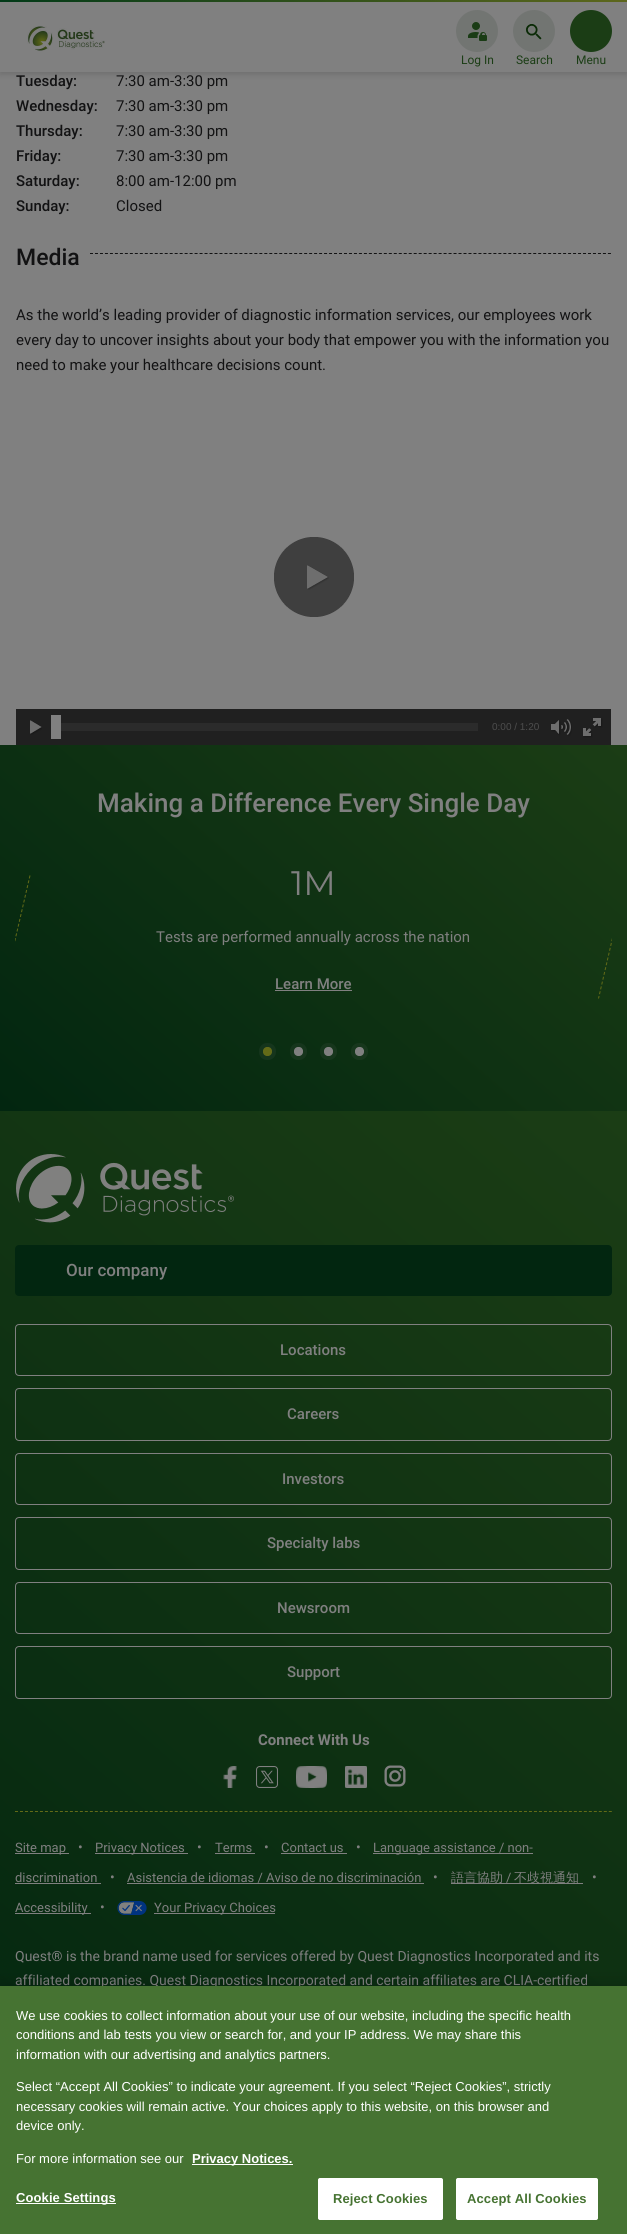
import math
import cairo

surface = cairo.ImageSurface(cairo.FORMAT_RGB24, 627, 2234)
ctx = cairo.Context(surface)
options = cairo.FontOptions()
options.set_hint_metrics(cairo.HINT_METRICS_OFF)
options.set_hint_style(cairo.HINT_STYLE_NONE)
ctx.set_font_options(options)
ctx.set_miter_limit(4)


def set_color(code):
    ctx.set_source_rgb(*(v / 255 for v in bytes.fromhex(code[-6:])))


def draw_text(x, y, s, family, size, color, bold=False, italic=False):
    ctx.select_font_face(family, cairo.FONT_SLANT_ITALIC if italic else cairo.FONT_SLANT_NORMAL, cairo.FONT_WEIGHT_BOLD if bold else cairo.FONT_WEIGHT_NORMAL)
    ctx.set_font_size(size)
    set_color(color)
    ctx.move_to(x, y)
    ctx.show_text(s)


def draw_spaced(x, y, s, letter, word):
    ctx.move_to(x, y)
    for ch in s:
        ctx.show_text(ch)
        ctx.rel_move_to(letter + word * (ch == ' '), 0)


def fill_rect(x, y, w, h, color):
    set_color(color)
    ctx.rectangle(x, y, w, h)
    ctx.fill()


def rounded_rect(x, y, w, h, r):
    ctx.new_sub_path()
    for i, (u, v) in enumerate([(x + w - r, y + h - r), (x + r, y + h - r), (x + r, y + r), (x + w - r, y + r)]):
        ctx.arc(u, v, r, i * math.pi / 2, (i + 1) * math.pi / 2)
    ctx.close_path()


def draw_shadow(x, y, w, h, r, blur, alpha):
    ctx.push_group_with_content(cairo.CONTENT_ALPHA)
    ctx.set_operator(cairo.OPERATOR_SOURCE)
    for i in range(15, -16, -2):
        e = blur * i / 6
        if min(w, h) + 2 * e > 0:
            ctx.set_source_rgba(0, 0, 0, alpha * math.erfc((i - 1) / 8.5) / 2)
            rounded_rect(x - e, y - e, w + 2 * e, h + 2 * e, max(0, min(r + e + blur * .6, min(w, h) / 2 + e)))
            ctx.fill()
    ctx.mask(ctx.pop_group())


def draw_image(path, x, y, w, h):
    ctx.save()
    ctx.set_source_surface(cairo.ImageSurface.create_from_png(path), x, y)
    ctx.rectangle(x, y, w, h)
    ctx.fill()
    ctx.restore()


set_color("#808080")
ctx.paint()
set_color("#000000")
draw_shadow(0, 2, 627, 72, 0, 3.5, 0.15)
fill_rect(0, 2, 627, 70, "#808080")
draw_image("assets/img1.png", 0, 0, 627, 2)
draw_image("assets/img2.png", 27, 26, 78, 25)
set_color("#727572")
ctx.arc(477, 31, 21, 0, 2 * math.pi)
ctx.fill()
draw_image("assets/img3.png", 468, 22, 19, 19)
draw_text(461, 64, "Log In", "Roboto", 12, "#1b3d15")
set_color("#727572")
ctx.new_path()
ctx.arc(534, 31, 21, 0, 2 * math.pi)
ctx.fill()
draw_image("assets/img4.png", 526, 24, 16, 16)
draw_text(516, 64, "Search", "Roboto", 12, "#1b3d15")
ctx.new_path()
ctx.arc(591, 31, 21, 0, 2 * math.pi)
ctx.fill()
draw_text(576, 64, "Menu", "Roboto", 12, "#1b3d15")
draw_text(16, 86, "Tuesday:", "Roboto Medium", 15, "#121213")
draw_text(116, 86, "7:30 am-3:30 pm", "Roboto", 15, "#121213")
draw_text(16, 111, "Wednesday:", "Roboto Medium", 15, "#121213")
draw_text(116, 111, "7:30 am-3:30 pm", "Roboto", 15, "#121213")
draw_text(16, 136, "Thursday:", "Roboto Medium", 15, "#121213")
draw_text(116, 136, "7:30 am-3:30 pm", "Roboto", 15, "#121213")
draw_text(16, 161, "Friday:", "Roboto Medium", 15, "#121213")
draw_text(116, 161, "7:30 am-3:30 pm", "Roboto", 15, "#121213")
draw_text(16, 186, "Saturday:", "Roboto Medium", 15, "#121213")
draw_text(116, 186, "8:00 am-12:00 pm", "Roboto", 15, "#121213")
draw_text(16, 211, "Sunday:", "Roboto Medium", 15, "#121213")
draw_text(116, 211, "Closed", "Roboto", 15, "#121213")
draw_text(16, 265, "Media", "Roboto Medium", 23, "#121213")
ctx.new_path()
ctx.move_to(90, 253.5)
ctx.line_to(611, 253.5)
ctx.set_line_width(1)
ctx.set_dash([3, 1.98])
ctx.stroke()
draw_text(16, 320, "As the world’s leading provider of diagnostic information services, our employees work", "Roboto", 15, "#121213")
draw_text(16, 345, "every day to uncover insights about your body that empower you with the information you", "Roboto", 15, "#121213")
draw_text(16, 370, "need to make your healthcare decisions count.", "Roboto", 15, "#121213")
draw_image("assets/img5.png", 274, 537, 80, 80)
fill_rect(16, 709, 595, 36, "#202020")
draw_image("assets/img6.png", 30, 720, 12, 15)
fill_rect(56, 723, 422, 8, "#2b2b2b")
fill_rect(51, 715, 10, 24, "#808080")
draw_text(492, 730, "0:00 / 1:20", "Liberation Sans", 10, "#4d4d4d")
draw_image("assets/img7.png", 551, 719, 21, 17)
draw_image("assets/img8.png", 583, 718, 20, 20)
gradient = cairo.LinearGradient(537, 668, 90, 1188)
gradient.add_color_stop_rgba(0, 0.106, 0.239, 0.082, 1)
gradient.add_color_stop_rgba(1, 0.008, 0.149, 0.063, 1)
ctx.set_source(gradient)
ctx.rectangle(0, 745, 627, 366)
ctx.fill()
draw_text(97, 812, "Making a Difference Every Single Day", "Roboto Medium", 26, "#808080")
ctx.save()
ctx.rectangle(15, 862, 597, 156)
ctx.clip()
ctx.new_path()
ctx.move_to(30, 875.5)
ctx.line_to(1.5, 998.5)
set_color("#626a17")
ctx.set_dash([3, 1.95])
ctx.stroke()
ctx.restore()
draw_text(291, 895, "1M", "Montserrat", 34, "#808080")
draw_text(156, 942, "Tests are performed annually across the nation", "Roboto", 15, "#808080")
draw_text(275, 989, "Learn More", "Roboto Medium", 15, "#808080")
fill_rect(275, 990, 77, 1, "#808080")
ctx.save()
ctx.rectangle(15, 862, 597, 156)
ctx.clip()
ctx.new_path()
ctx.move_to(627, 875.5)
ctx.line_to(598.5, 998.5)
set_color("#626a17")
ctx.set_dash([3, 1.95])
ctx.stroke()
ctx.restore()
set_color("#636b18")
rounded_rect(263, 1047, 9, 9, 4)
ctx.fill()
rounded_rect(261, 1045, 13, 13, 6)
ctx.set_source_rgba(0.502, 0.502, 0.502, 0.1)
ctx.set_line_width(4)
ctx.set_dash([])
ctx.stroke()
set_color("#808080")
rounded_rect(294, 1047, 9, 9, 4)
ctx.fill()
rounded_rect(292, 1045, 13, 13, 6)
ctx.set_source_rgba(0.502, 0.502, 0.502, 0.1)
ctx.stroke()
set_color("#808080")
rounded_rect(324, 1047, 9, 9, 4)
ctx.fill()
rounded_rect(322, 1045, 13, 13, 6)
ctx.set_source_rgba(0.502, 0.502, 0.502, 0.1)
ctx.stroke()
set_color("#808080")
rounded_rect(355, 1047, 9, 9, 4)
ctx.fill()
rounded_rect(353, 1045, 13, 13, 6)
ctx.set_source_rgba(0.502, 0.502, 0.502, 0.1)
ctx.stroke()
gradient = cairo.LinearGradient(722, 1193, -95, 2144)
gradient.add_color_stop_rgba(0, 0.106, 0.239, 0.082, 1)
gradient.add_color_stop_rgba(1, 0.008, 0.149, 0.063, 1)
ctx.set_source(gradient)
ctx.rectangle(0, 1111, 627, 875)
ctx.fill()
draw_image("assets/img9.png", 16, 1154, 218, 69)
set_color("#022610")
rounded_rect(15, 1245, 597, 51, 4)
ctx.fill()
draw_text(66, 1276, "Our company", "Roboto Medium", 17, "#808080")
rounded_rect(15.5, 1324.5, 596, 51, 3.5)
ctx.set_line_width(1)
ctx.stroke()
draw_text(280, 1355, "Locations", "Roboto Medium", 15, "#808080")
rounded_rect(15.5, 1388.5, 596, 52, 3.5)
ctx.stroke()
draw_text(287, 1419, "Careers", "Roboto Medium", 15, "#808080")
rounded_rect(15.5, 1453.5, 596, 51, 3.5)
ctx.stroke()
draw_text(282, 1484, "Investors", "Roboto Medium", 15, "#808080")
rounded_rect(15.5, 1517.5, 596, 52, 3.5)
ctx.stroke()
draw_text(267, 1548, "Specialty labs", "Roboto Medium", 15, "#808080")
rounded_rect(15.5, 1582.5, 596, 51, 3.5)
ctx.stroke()
draw_text(277, 1613, "Newsroom", "Roboto Medium", 15, "#808080")
rounded_rect(15.5, 1646.5, 596, 52, 3.5)
ctx.stroke()
draw_text(287, 1677, "Support", "Roboto Medium", 15, "#808080")
draw_text(258, 1745, "Connect With Us", "Roboto", 15, "#808080", bold=True)
draw_image("assets/img10.png", 223, 1766, 14, 22)
draw_image("assets/img11.png", 256, 1766, 22, 22)
draw_image("assets/img12.png", 296, 1766, 31, 22)
draw_image("assets/img13.png", 345, 1766, 22, 22)
draw_image("assets/img14.png", 384, 1765, 22, 22)
ctx.new_path()
ctx.move_to(15, 1811.5)
ctx.line_to(612, 1811.5)
set_color("#626a17")
ctx.set_dash([3, 1.99])
ctx.stroke()
fill_rect(15, 1853, 54, 1, "#808080")
draw_text(15, 1852, "Site map", "Roboto", 13, "#808080")
draw_text(78, 1852, "•", "Roboto", 14, "#808080")
fill_rect(95, 1853, 93, 1, "#808080")
draw_text(95, 1852, "Privacy Notices", "Roboto", 13, "#808080")
draw_text(197, 1852, "•", "Roboto", 14, "#808080")
draw_text(215, 1852, "Terms", "Roboto", 13, "#808080")
fill_rect(215, 1853, 40, 1, "#808080")
draw_text(264, 1852, "•", "Roboto", 14, "#808080")
draw_text(281, 1852, "Contact us", "Roboto", 13, "#808080")
fill_rect(281, 1853, 66, 1, "#808080")
draw_text(356, 1852, "•", "Roboto", 14, "#808080")
fill_rect(373, 1853, 160, 1, "#808080")
draw_text(373, 1852, "Language assistance / non-", "Roboto", 13, "#808080")
draw_text(15, 1882, "discrimination", "Roboto", 13, "#808080")
fill_rect(15, 1883, 86, 1, "#808080")
draw_text(110, 1882, "•", "Roboto", 14, "#808080")
draw_text(127, 1882, "Asistencia de idiomas / Aviso de no discriminación", "Roboto", 13, "#808080")
fill_rect(127, 1883, 297, 1, "#808080")
draw_text(433, 1882, "•", "Roboto", 14, "#808080")
fill_rect(451, 1883, 132, 1, "#808080")
draw_text(451, 1882, "語言協助", "WenQuanYi Zen Hei Medium", 13, "#808080")
draw_text(506, 1882, "/", "Roboto", 13, "#808080")
draw_text(514, 1882, "不歧視通知", "WenQuanYi Zen Hei Medium", 13, "#808080")
draw_text(592, 1882, "•", "Roboto", 14, "#808080")
fill_rect(15, 1913, 76, 1, "#808080")
draw_text(15, 1912, "Accessibility", "Roboto", 13, "#808080")
draw_text(100, 1912, "•", "Roboto", 14, "#808080")
draw_image("assets/img15.png", 117, 1901, 30, 14)
fill_rect(154, 1913, 121, 1, "#808080")
draw_text(154, 1912, "Your Privacy Choices", "Roboto", 13, "#808080")
draw_text(15, 1961, "Quest® is the brand name used for services offered by Quest Diagnostics Incorporated and its", "Roboto", 14, "#808080")
draw_text(15, 1985, "affiliated companies. Quest Diagnostics Incorporated and certain affiliates are CLIA-certified", "Roboto", 14, "#808080")
set_color("#000000")
draw_shadow(0, 1986, 627, 248, 0, 9, 0.2)
fill_rect(0, 1986, 627, 248, "#467332")
draw_text(16, 2020, "We use cookies to collect information about your use of our website, including the specific health", "Liberation Sans", 13, "#ffffff")
draw_text(16, 2039, "conditions and lab tests you view or search for, and your IP address. We may share this", "Liberation Sans", 13, "#ffffff")
draw_text(16, 2059, "information with our advertising and analytics partners.", "Liberation Sans", 13, "#ffffff")
draw_text(16, 2091, "Select “Accept All Cookies” to indicate your agreement. If you select “Reject Cookies”, strictly", "Liberation Sans", 13, "#ffffff")
draw_text(16, 2111, "necessary cookies will remain active. Your choices apply to this website, on this browser and", "Liberation Sans", 13, "#ffffff")
draw_text(16, 2130, "device only.", "Liberation Sans", 13, "#ffffff")
draw_text(16, 2163, "For more information see our", "Liberation Sans", 13, "#ffffff")
fill_rect(192, 2164, 101, 1, "#ffffff")
draw_text(192, 2163, "Privacy Notices.", "Liberation Sans", 13, "#ffffff", bold=True)
fill_rect(16, 2203, 100, 1, "#ffffff")
draw_spaced(16, 2202, "Cookie Settings", 0.1, 0)
rounded_rect(318.5, 2178.5, 124, 41, 1.5)
ctx.fill_preserve()
ctx.set_dash([])
ctx.stroke()
set_color("#467332")
draw_spaced(333, 2203, "Reject Cookies", 0.1, 0)
set_color("#ffffff")
rounded_rect(456.5, 2178.5, 141, 41, 1.5)
ctx.fill_preserve()
ctx.stroke()
set_color("#467332")
draw_spaced(467, 2203, "Accept All Cookies", 0.1, 0)
surface.write_to_png("output.png")
